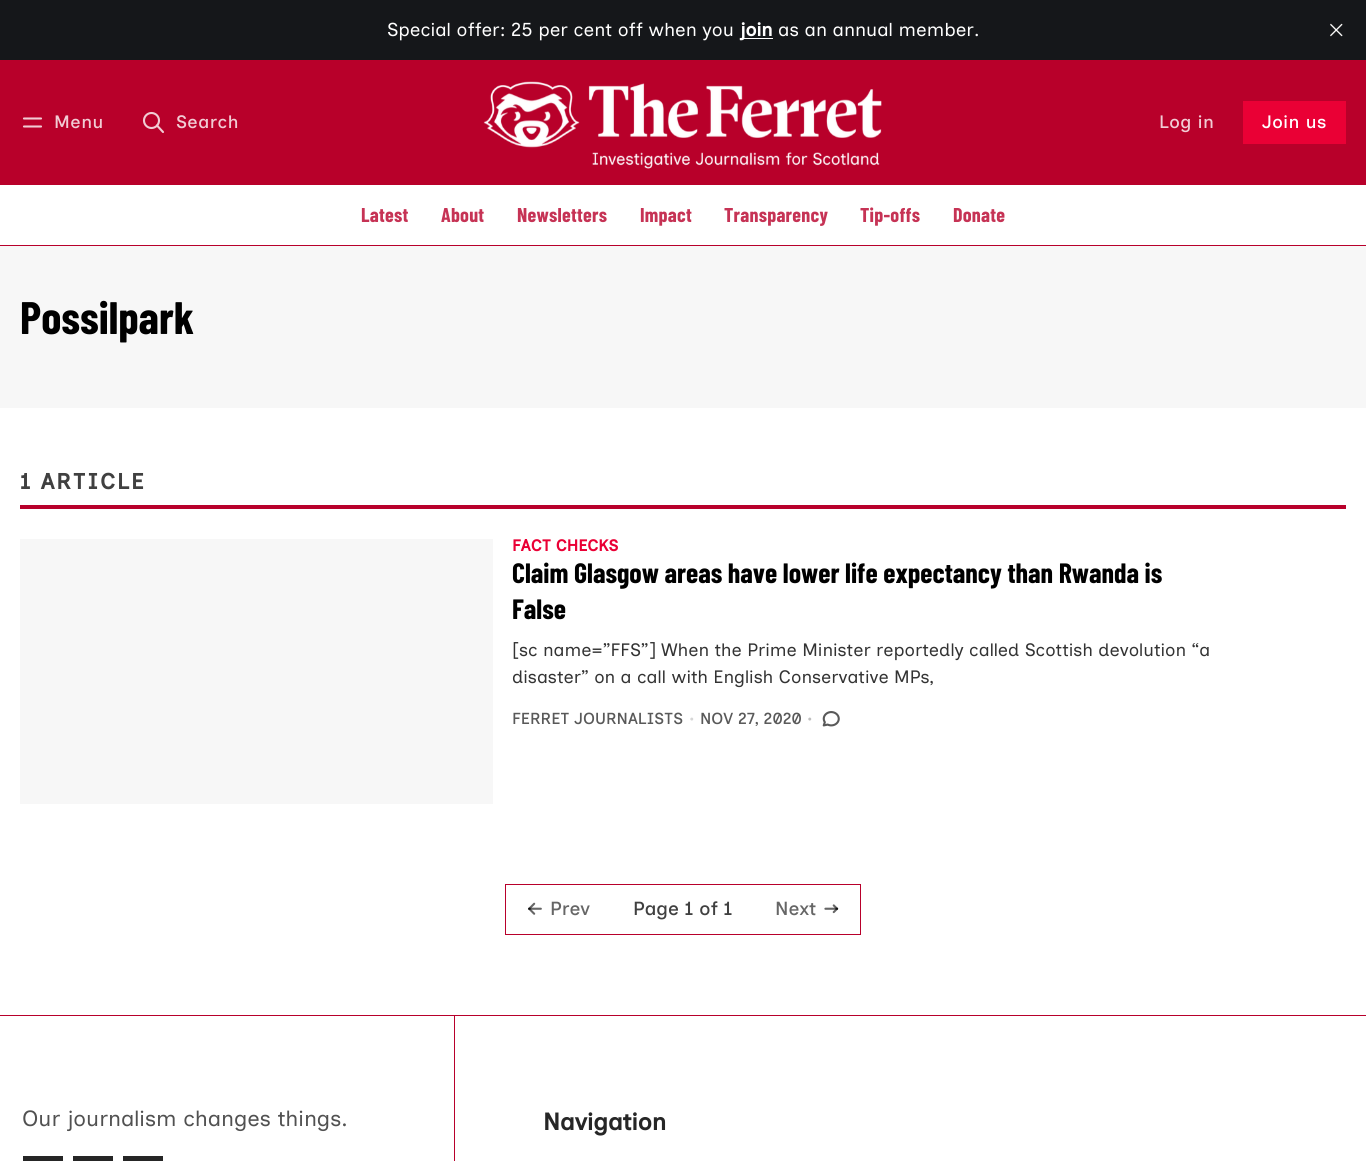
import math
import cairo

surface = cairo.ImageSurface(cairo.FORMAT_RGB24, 1366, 1161)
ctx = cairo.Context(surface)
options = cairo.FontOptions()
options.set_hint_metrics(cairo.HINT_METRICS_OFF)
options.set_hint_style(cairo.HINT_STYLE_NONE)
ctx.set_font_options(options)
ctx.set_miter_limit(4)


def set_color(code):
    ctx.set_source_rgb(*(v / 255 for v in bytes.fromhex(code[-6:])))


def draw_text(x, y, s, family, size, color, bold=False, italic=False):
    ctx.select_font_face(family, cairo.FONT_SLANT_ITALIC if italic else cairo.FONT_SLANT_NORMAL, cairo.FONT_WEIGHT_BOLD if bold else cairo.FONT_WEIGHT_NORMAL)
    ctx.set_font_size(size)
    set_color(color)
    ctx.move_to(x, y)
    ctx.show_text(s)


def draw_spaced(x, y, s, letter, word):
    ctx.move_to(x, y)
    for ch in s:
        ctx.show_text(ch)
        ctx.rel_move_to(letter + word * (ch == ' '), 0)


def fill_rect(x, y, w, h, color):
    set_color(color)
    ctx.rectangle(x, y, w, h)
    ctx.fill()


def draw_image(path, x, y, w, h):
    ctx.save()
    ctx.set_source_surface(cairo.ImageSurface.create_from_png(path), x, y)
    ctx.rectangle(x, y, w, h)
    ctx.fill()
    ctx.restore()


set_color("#ffffff")
ctx.paint()
fill_rect(0, 0, 1366, 60, "#15171a")
draw_text(387, 36, "Special offer: 25 per cent off when you", "Inclusive Sans", 18.75, "#ffffff")
fill_rect(740, 38, 33, 1, "#ffffff")
draw_text(740, 36, "join", "Inclusive Sans", 18.75, "#ffffff", bold=True)
draw_text(778, 36, "as an annual member.", "Inclusive Sans", 18.75, "#ffffff")
draw_image("assets/img1.png", 1330, 23, 13, 14)
fill_rect(0, 60, 1366, 125, "#b8002a")
ctx.new_path()
ctx.move_to(24, 118.5)
ctx.line_to(41, 118.5)
ctx.move_to(24, 126.5)
ctx.line_to(41, 126.5)
set_color("#f1ccd4")
ctx.set_line_width(2.1)
ctx.set_line_cap(cairo.LINE_CAP_ROUND)
ctx.set_line_join(cairo.LINE_JOIN_ROUND)
ctx.stroke()
ctx.select_font_face("Inclusive Sans Medium")
ctx.set_font_size(18)
draw_spaced(54, 128, "Menu", 0.5, 0)
ctx.new_path()
ctx.arc(151.5, 120.5, 7.5, 0, 2 * math.pi)
ctx.set_line_cap(cairo.LINE_CAP_BUTT)
ctx.set_line_join(cairo.LINE_JOIN_MITER)
ctx.stroke()
ctx.new_path()
ctx.move_to(163, 132)
ctx.line_to(157, 125.5)
ctx.set_line_cap(cairo.LINE_CAP_ROUND)
ctx.set_line_join(cairo.LINE_JOIN_ROUND)
ctx.stroke()
draw_spaced(176, 128, "Search", 0.5, 0)
draw_image("assets/img2.png", 483, 81, 399, 88)
draw_spaced(1159, 128, "Log in", 0.5, 0)
fill_rect(1243, 101, 103, 43, "#ea0035")
set_color("#ffffff")
draw_spaced(1262, 128, "Join us", 0.5, 0)
fill_rect(0, 245, 1366, 1, "#b8002b")
ctx.select_font_face("Barlow Condensed", cairo.FONT_SLANT_NORMAL, cairo.FONT_WEIGHT_BOLD)
ctx.set_font_size(20)
set_color("#c63355")
draw_spaced(361, 222, "Latest", 0.25, 0)
draw_spaced(441, 222, "About", 0.25, 0)
draw_spaced(517, 222, "Newsletters", 0.25, 0)
draw_spaced(640, 222, "Impact", 0.25, 0)
draw_spaced(724, 222, "Transparency", 0.25, 0)
draw_spaced(860, 222, "Tip-offs", 0.25, 0)
draw_spaced(953, 222, "Donate", 0.25, 0)
fill_rect(0, 246, 1366, 162, "#f7f7f7")
draw_text(20, 334, "Possilpark", "Barlow Condensed", 45.5, "#000000", bold=True)
fill_rect(20, 505, 1326, 4, "#b8002b")
ctx.select_font_face("Inclusive Sans", cairo.FONT_SLANT_NORMAL, cairo.FONT_WEIGHT_BOLD)
ctx.set_font_size(22)
set_color("#404040")
draw_spaced(20, 489, "1 ARTICLE", 1.9, 0)
fill_rect(20, 539, 473, 265, "#f7f7f7")
draw_text(512, 551, "FACT CHECKS", "Inclusive Sans", 16, "#ea0035", bold=True)
draw_text(512, 583, "Claim Glasgow areas have lower life expectancy than Rwanda is", "Barlow Condensed", 28, "#000000", bold=True)
draw_text(512, 619, "False", "Barlow Condensed", 28, "#000000", bold=True)
draw_text(512, 656, "[sc name=”FFS”] When the Prime Minister reportedly called Scottish devolution “a", "Inclusive Sans", 18, "#333333")
draw_text(512, 683, "disaster” on a call with English Conservative MPs,", "Inclusive Sans", 18, "#333333")
draw_text(512, 724, "FERRET JOURNALISTS", "Inclusive Sans Medium", 16, "#595959")
draw_text(689, 724, "•", "Inclusive Sans Medium", 16, "#d6d6d6")
draw_text(700, 724, "NOV 27, 2020", "Inclusive Sans Medium", 16, "#595959")
draw_text(807, 724, "•", "Inclusive Sans Medium", 16, "#bfbfbf")
draw_image("assets/img3.png", 822, 711, 18, 16)
ctx.rectangle(505.5, 884.5, 355, 50)
set_color("#b8002b")
ctx.set_line_width(1)
ctx.set_line_cap(cairo.LINE_CAP_BUTT)
ctx.set_line_join(cairo.LINE_JOIN_MITER)
ctx.stroke()
draw_image("assets/img4.png", 528, 902, 14, 13)
draw_text(550, 915, "Prev", "Inclusive Sans Medium", 19, "#666666")
draw_text(633, 915, "Page 1 of 1", "Inclusive Sans Medium", 19, "#404040")
draw_text(775, 915, "Next", "Inclusive Sans Medium", 19, "#666666")
draw_image("assets/img5.png", 824, 904, 15, 10)
fill_rect(0, 1015, 1366, 1, "#b8002b")
fill_rect(454, 1016, 1, 145, "#b8002b")
draw_text(22, 1126, "Our journalism changes things.", "Inclusive Sans", 22, "#515151")
fill_rect(23, 1156, 40, 5, "#262626")
fill_rect(73, 1156, 40, 5, "#262626")
fill_rect(123, 1156, 40, 5, "#262626")
draw_text(543, 1130, "Navigation", "Inclusive Sans", 24, "#262626", bold=True)
surface.write_to_png("output.png")
